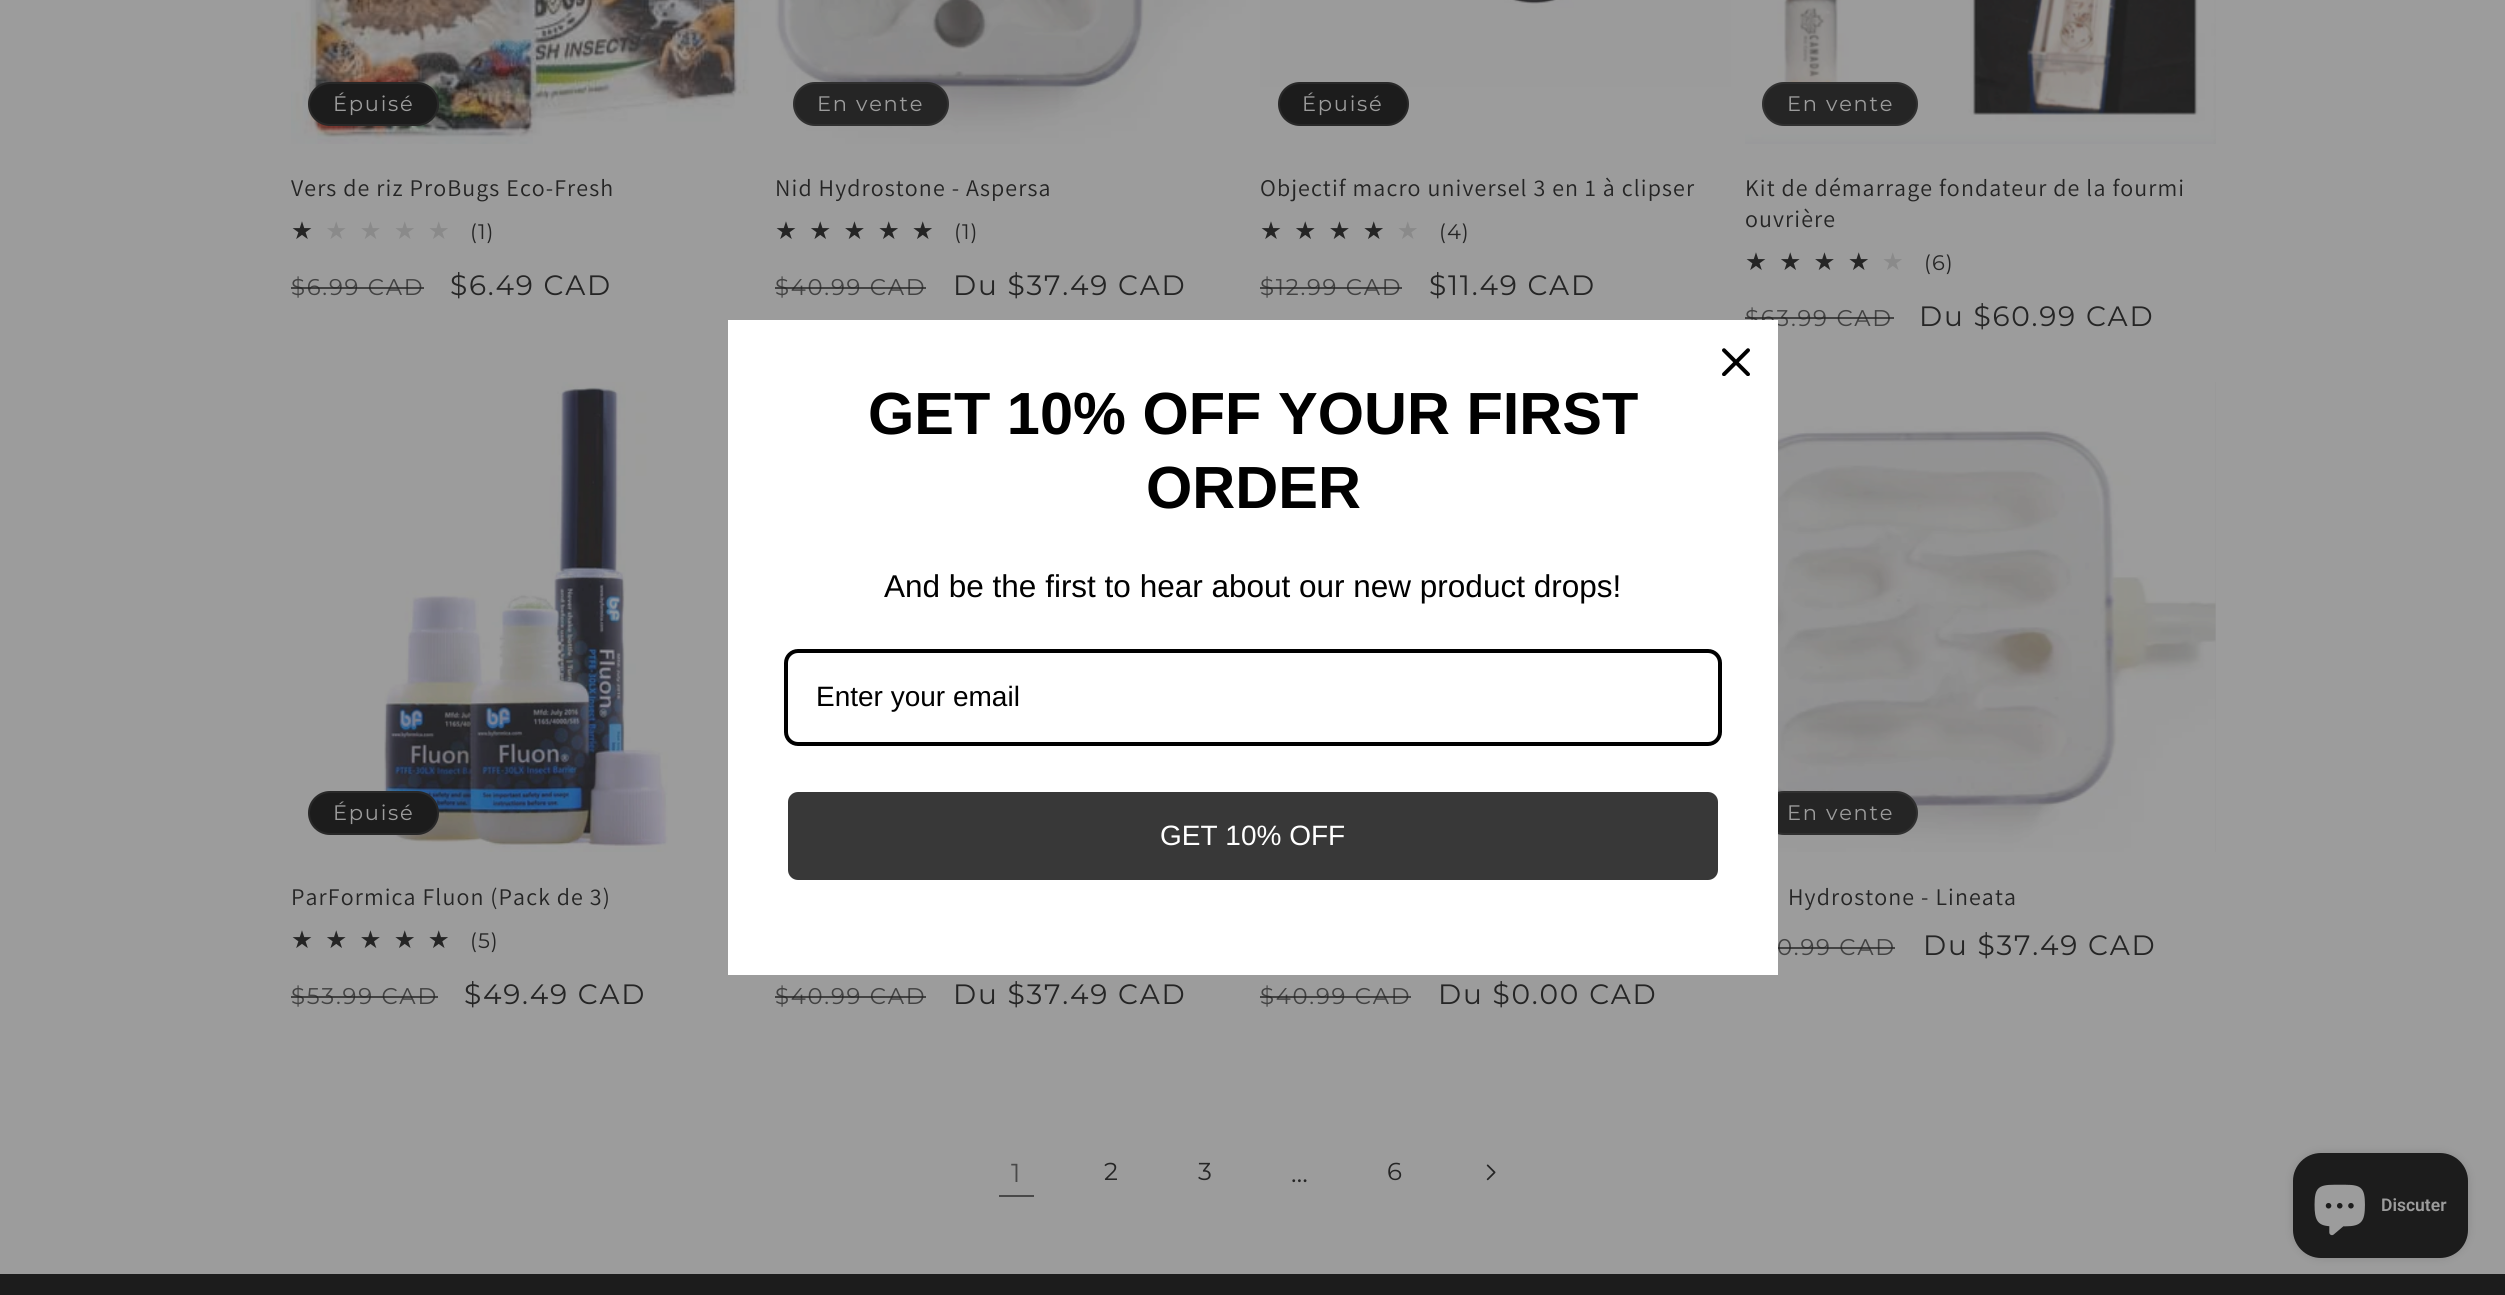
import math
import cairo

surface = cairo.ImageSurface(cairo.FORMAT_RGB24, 2505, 1295)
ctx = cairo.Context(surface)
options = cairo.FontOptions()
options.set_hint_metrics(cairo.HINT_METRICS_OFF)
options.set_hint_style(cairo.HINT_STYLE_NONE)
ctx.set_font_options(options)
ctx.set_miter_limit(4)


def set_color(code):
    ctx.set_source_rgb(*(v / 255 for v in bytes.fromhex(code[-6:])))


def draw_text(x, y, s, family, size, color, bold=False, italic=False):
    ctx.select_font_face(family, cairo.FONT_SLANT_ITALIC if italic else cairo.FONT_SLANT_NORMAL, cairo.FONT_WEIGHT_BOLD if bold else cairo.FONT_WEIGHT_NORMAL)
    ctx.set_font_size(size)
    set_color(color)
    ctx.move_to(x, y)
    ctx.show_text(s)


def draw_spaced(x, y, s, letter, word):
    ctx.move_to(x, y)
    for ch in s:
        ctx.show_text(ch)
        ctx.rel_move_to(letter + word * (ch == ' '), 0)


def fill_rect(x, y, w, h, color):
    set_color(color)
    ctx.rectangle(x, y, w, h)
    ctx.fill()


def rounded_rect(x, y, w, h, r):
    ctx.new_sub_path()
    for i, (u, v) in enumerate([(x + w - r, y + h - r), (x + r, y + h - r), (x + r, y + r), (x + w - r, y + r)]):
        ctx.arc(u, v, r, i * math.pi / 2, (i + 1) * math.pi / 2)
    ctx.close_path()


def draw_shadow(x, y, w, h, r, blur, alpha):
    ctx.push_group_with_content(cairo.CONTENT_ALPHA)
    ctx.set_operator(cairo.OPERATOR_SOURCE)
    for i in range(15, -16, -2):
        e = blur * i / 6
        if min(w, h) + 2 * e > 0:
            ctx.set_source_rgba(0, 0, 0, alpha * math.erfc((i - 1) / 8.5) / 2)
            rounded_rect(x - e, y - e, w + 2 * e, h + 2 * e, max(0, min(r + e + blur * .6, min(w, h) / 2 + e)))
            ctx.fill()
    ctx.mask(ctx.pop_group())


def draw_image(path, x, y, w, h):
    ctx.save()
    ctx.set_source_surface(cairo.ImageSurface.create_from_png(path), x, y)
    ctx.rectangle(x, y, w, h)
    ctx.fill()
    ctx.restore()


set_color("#9c9c9c")
ctx.paint()
draw_image("assets/img1.png", 291, 0, 470, 144)
set_color("#1c1c1c")
rounded_rect(308, 82, 131, 44, 22)
ctx.fill()
rounded_rect(309, 83, 129, 42, 21)
ctx.set_source_rgba(0.612, 0.612, 0.612, 0.1)
ctx.stroke()
ctx.select_font_face("Montserrat")
ctx.set_font_size(21)
set_color("#9c9c9c")
draw_spaced(333, 111, "Épuisé", 1.75, 0)
ctx.select_font_face("Assistant")
ctx.set_font_size(23.9)
set_color("#252525")
draw_spaced(291, 196, "Vers de riz ProBugs Eco-Fresh", 1.1, 0)
ctx.select_font_face("DejaVu Sans")
ctx.set_font_size(24.5)
gradient = cairo.LinearGradient(291, 232, 462, 232)
gradient.add_color_stop_rgba(0.2, 0.145, 0.145, 0.145, 1)
gradient.add_color_stop_rgba(0.2, 0.541, 0.541, 0.541, 1)
ctx.set_source(gradient)
draw_spaced(291, 239, "★★★★★", 12.25, 0)
ctx.select_font_face("Montserrat")
ctx.set_font_size(21)
set_color("#252525")
draw_spaced(470, 239, "(1)", 1, 0)
ctx.set_font_size(22.75)
set_color("#434343")
draw_spaced(291, 295, "$6.99 CAD", 1.75, 0)
ctx.set_source_rgba(0.145, 0.145, 0.145, 0.75)
ctx.rectangle(291, 287, 133, 2)
ctx.fill()
ctx.set_font_size(28)
set_color("#252525")
draw_spaced(450, 295, "$6.49 CAD", 1.75, 0)
draw_image("assets/img2.png", 775, 0, 471, 144)
rounded_rect(793, 82, 156, 44, 22)
ctx.fill()
rounded_rect(794, 83, 154, 42, 21)
ctx.set_source_rgba(0.612, 0.612, 0.612, 0.1)
ctx.stroke()
ctx.set_font_size(21)
set_color("#9c9c9c")
draw_spaced(817, 111, "En vente", 1.75, 0)
ctx.select_font_face("Assistant")
ctx.set_font_size(23.9)
set_color("#252525")
draw_spaced(775, 196, "Nid Hydrostone - Aspersa", 1.1, 0)
ctx.select_font_face("DejaVu Sans")
ctx.set_font_size(24.5)
gradient = cairo.LinearGradient(775, 232, 946, 232)
gradient.add_color_stop_rgba(1, 0.145, 0.145, 0.145, 1)
gradient.add_color_stop_rgba(1, 0.541, 0.541, 0.541, 1)
ctx.set_source(gradient)
draw_spaced(775, 239, "★★★★★", 12.25, 0)
ctx.select_font_face("Montserrat")
ctx.set_font_size(21)
set_color("#252525")
draw_spaced(954, 239, "(1)", 1, 0)
ctx.set_font_size(22.75)
set_color("#434343")
draw_spaced(775, 295, "$40.99 CAD", 1.75, 0)
ctx.set_source_rgba(0.145, 0.145, 0.145, 0.75)
ctx.rectangle(775, 287, 151, 2)
ctx.fill()
ctx.set_font_size(28)
set_color("#252525")
draw_spaced(953, 295, "Du $37.49 CAD", 1.75, 0)
draw_image("assets/img3.png", 1260, 0, 471, 144)
set_color("#1c1c1c")
rounded_rect(1278, 82, 131, 44, 22)
ctx.fill()
rounded_rect(1279, 83, 129, 42, 21)
ctx.set_source_rgba(0.612, 0.612, 0.612, 0.1)
ctx.stroke()
ctx.set_font_size(21)
set_color("#9c9c9c")
draw_spaced(1302, 111, "Épuisé", 1.75, 0)
ctx.select_font_face("Assistant")
ctx.set_font_size(23.9)
set_color("#252525")
draw_spaced(1260, 196, "Objectif macro universel 3 en 1 à clipser", 1.1, 0)
ctx.select_font_face("DejaVu Sans")
ctx.set_font_size(24.5)
gradient = cairo.LinearGradient(1260, 232, 1431, 232)
gradient.add_color_stop_rgba(0.8, 0.145, 0.145, 0.145, 1)
gradient.add_color_stop_rgba(0.8, 0.541, 0.541, 0.541, 1)
ctx.set_source(gradient)
draw_spaced(1260, 239, "★★★★★", 12.25, 0)
ctx.select_font_face("Montserrat")
ctx.set_font_size(21)
set_color("#252525")
draw_spaced(1439, 239, "(4)", 1, 0)
ctx.set_font_size(22.75)
set_color("#434343")
draw_spaced(1260, 295, "$12.99 CAD", 1.75, 0)
ctx.set_source_rgba(0.145, 0.145, 0.145, 0.75)
ctx.rectangle(1260, 287, 142, 2)
ctx.fill()
ctx.set_font_size(28)
set_color("#252525")
draw_spaced(1429, 295, "$11.49 CAD", 1.75, 0)
fill_rect(1745, 0, 471, 144, "#969696")
draw_image("assets/img4.png", 1745, 0, 471, 144)
set_color("#252525")
rounded_rect(1762, 82, 156, 44, 22)
ctx.fill()
rounded_rect(1763, 83, 154, 42, 21)
ctx.set_source_rgba(0.612, 0.612, 0.612, 0.1)
ctx.stroke()
ctx.set_font_size(21)
set_color("#9c9c9c")
draw_spaced(1787, 111, "En vente", 1.75, 0)
ctx.select_font_face("Assistant")
ctx.set_font_size(23.9)
set_color("#252525")
draw_spaced(1745, 196, "Kit de démarrage fondateur de la fourmi", 1.1, 0)
draw_spaced(1745, 227, "ouvrière", 1.1, 0)
ctx.select_font_face("DejaVu Sans")
ctx.set_font_size(24.5)
gradient = cairo.LinearGradient(1745, 262, 1916, 262)
gradient.add_color_stop_rgba(0.8, 0.145, 0.145, 0.145, 1)
gradient.add_color_stop_rgba(0.8, 0.541, 0.541, 0.541, 1)
ctx.set_source(gradient)
draw_spaced(1745, 270, "★★★★★", 12.25, 0)
ctx.select_font_face("Montserrat")
ctx.set_font_size(21)
set_color("#252525")
draw_spaced(1924, 270, "(6)", 1, 0)
ctx.set_font_size(22.75)
set_color("#434343")
draw_spaced(1745, 326, "$63.99 CAD", 1.75, 0)
ctx.set_source_rgba(0.145, 0.145, 0.145, 0.75)
ctx.rectangle(1745, 317, 149, 2)
ctx.fill()
ctx.set_font_size(28)
set_color("#252525")
draw_spaced(1919, 326, "Du $60.99 CAD", 1.75, 0)
draw_image("assets/img5.png", 291, 382, 437, 470)
set_color("#1c1c1c")
rounded_rect(308, 791, 131, 44, 22)
ctx.fill()
rounded_rect(309, 792, 129, 42, 21)
ctx.set_source_rgba(0.612, 0.612, 0.612, 0.1)
ctx.stroke()
ctx.set_font_size(21)
set_color("#9c9c9c")
draw_spaced(333, 820, "Épuisé", 1.75, 0)
ctx.select_font_face("Assistant")
ctx.set_font_size(23.9)
set_color("#252525")
draw_spaced(291, 905, "ParFormica Fluon (Pack de 3)", 1.1, 0)
ctx.select_font_face("DejaVu Sans")
ctx.set_font_size(24.5)
gradient = cairo.LinearGradient(291, 940, 462, 940)
gradient.add_color_stop_rgba(0.93, 0.145, 0.145, 0.145, 1)
gradient.add_color_stop_rgba(0.93, 0.541, 0.541, 0.541, 1)
ctx.set_source(gradient)
draw_spaced(291, 948, "★★★★★", 12.25, 0)
ctx.select_font_face("Montserrat")
ctx.set_font_size(21)
set_color("#252525")
draw_spaced(470, 948, "(5)", 1, 0)
ctx.set_font_size(22.75)
set_color("#434343")
draw_spaced(291, 1004, "$53.99 CAD", 1.75, 0)
ctx.set_source_rgba(0.145, 0.145, 0.145, 0.75)
ctx.rectangle(291, 996, 147, 2)
ctx.fill()
ctx.set_font_size(28)
set_color("#252525")
draw_spaced(464, 1004, "$49.49 CAD", 1.75, 0)
fill_rect(2215, 382, 1, 470, "#969696")
draw_image("assets/img6.png", 1778, 382, 438, 470)
set_color("#252525")
rounded_rect(1762, 791, 156, 44, 22)
ctx.fill()
rounded_rect(1763, 792, 154, 42, 21)
ctx.set_source_rgba(0.612, 0.612, 0.612, 0.1)
ctx.stroke()
ctx.set_font_size(21)
set_color("#9c9c9c")
draw_spaced(1787, 820, "En vente", 1.75, 0)
ctx.select_font_face("Assistant")
ctx.set_font_size(23.9)
set_color("#252525")
draw_spaced(1788, 905, "Hydrostone - Lineata", 1.1, 0)
ctx.select_font_face("Montserrat")
ctx.set_font_size(22.75)
set_color("#434343")
draw_spaced(1777, 955, "0.99 CAD", 1.75, 0)
ctx.set_source_rgba(0.145, 0.145, 0.145, 0.75)
ctx.rectangle(1778, 947, 117, 2)
ctx.fill()
ctx.set_font_size(28)
set_color("#252525")
draw_spaced(1923, 955, "Du $37.49 CAD", 1.75, 0)
ctx.set_font_size(22.75)
set_color("#434343")
draw_spaced(775, 1004, "$40.99 CAD", 1.75, 0)
ctx.set_source_rgba(0.145, 0.145, 0.145, 0.75)
ctx.rectangle(775, 996, 151, 2)
ctx.fill()
ctx.set_font_size(28)
set_color("#252525")
draw_spaced(953, 1004, "Du $37.49 CAD", 1.75, 0)
ctx.set_font_size(22.75)
set_color("#434343")
draw_spaced(1260, 1004, "$40.99 CAD", 1.75, 0)
ctx.set_source_rgba(0.145, 0.145, 0.145, 0.75)
ctx.rectangle(1260, 996, 151, 2)
ctx.fill()
ctx.set_font_size(28)
set_color("#252525")
draw_spaced(1438, 1004, "Du $0.00 CAD", 1.75, 0)
ctx.set_font_size(26)
set_color("#494949")
draw_spaced(1011, 1182, "1", 1, 0)
fill_rect(999, 1195, 35, 2, "#494949")
ctx.set_font_size(24.5)
set_color("#252525")
draw_spaced(1104, 1180, "2", 1, 0)
draw_spaced(1198, 1180, "3", 1, 0)
ctx.set_font_size(26)
draw_spaced(1291, 1182, "…", 1, 0)
ctx.set_font_size(24.5)
draw_spaced(1387, 1180, "6", 1, 0)
draw_image("assets/img7.png", 1486, 1164, 10, 17)
fill_rect(728, 320, 1050, 655, "#ffffff")
draw_image("assets/img8.png", 1722, 348, 28, 28)
draw_text(868, 434, "GET 10% OFF YOUR FIRST", "Liberation Sans", 59.5, "#000000", bold=True)
draw_text(1146, 508, "ORDER", "Liberation Sans", 59.5, "#000000", bold=True)
draw_text(884, 597, "And be the first to hear about our new product drops!", "Liberation Sans", 31.5, "#000000")
rounded_rect(786, 651, 934, 93, 12)
ctx.set_line_width(4)
ctx.stroke()
draw_text(816, 706, "Enter your email", "Liberation Sans", 28, "#000000")
set_color("#383838")
rounded_rect(786, 790, 934, 92, 12)
ctx.fill_preserve()
set_color("#ffffff")
ctx.stroke()
draw_text(1160, 845, "GET 10% OFF", "Liberation Sans", 28, "#ffffff")
set_color("#1c1c1c")
draw_shadow(2293, 1153, 175, 105, 28, 4.5, 0.15)
set_color("#1c1c1c")
rounded_rect(2293, 1153, 175, 105, 28)
ctx.fill()
draw_image("assets/img9.png", 2314, 1184, 51, 52)
draw_text(2381, 1211, "Discuter", "Roboto SemiBold", 17.5, "#9c9c9c")
fill_rect(0, 1274, 2505, 21, "#1c1c1c")
surface.write_to_png("output.png")
